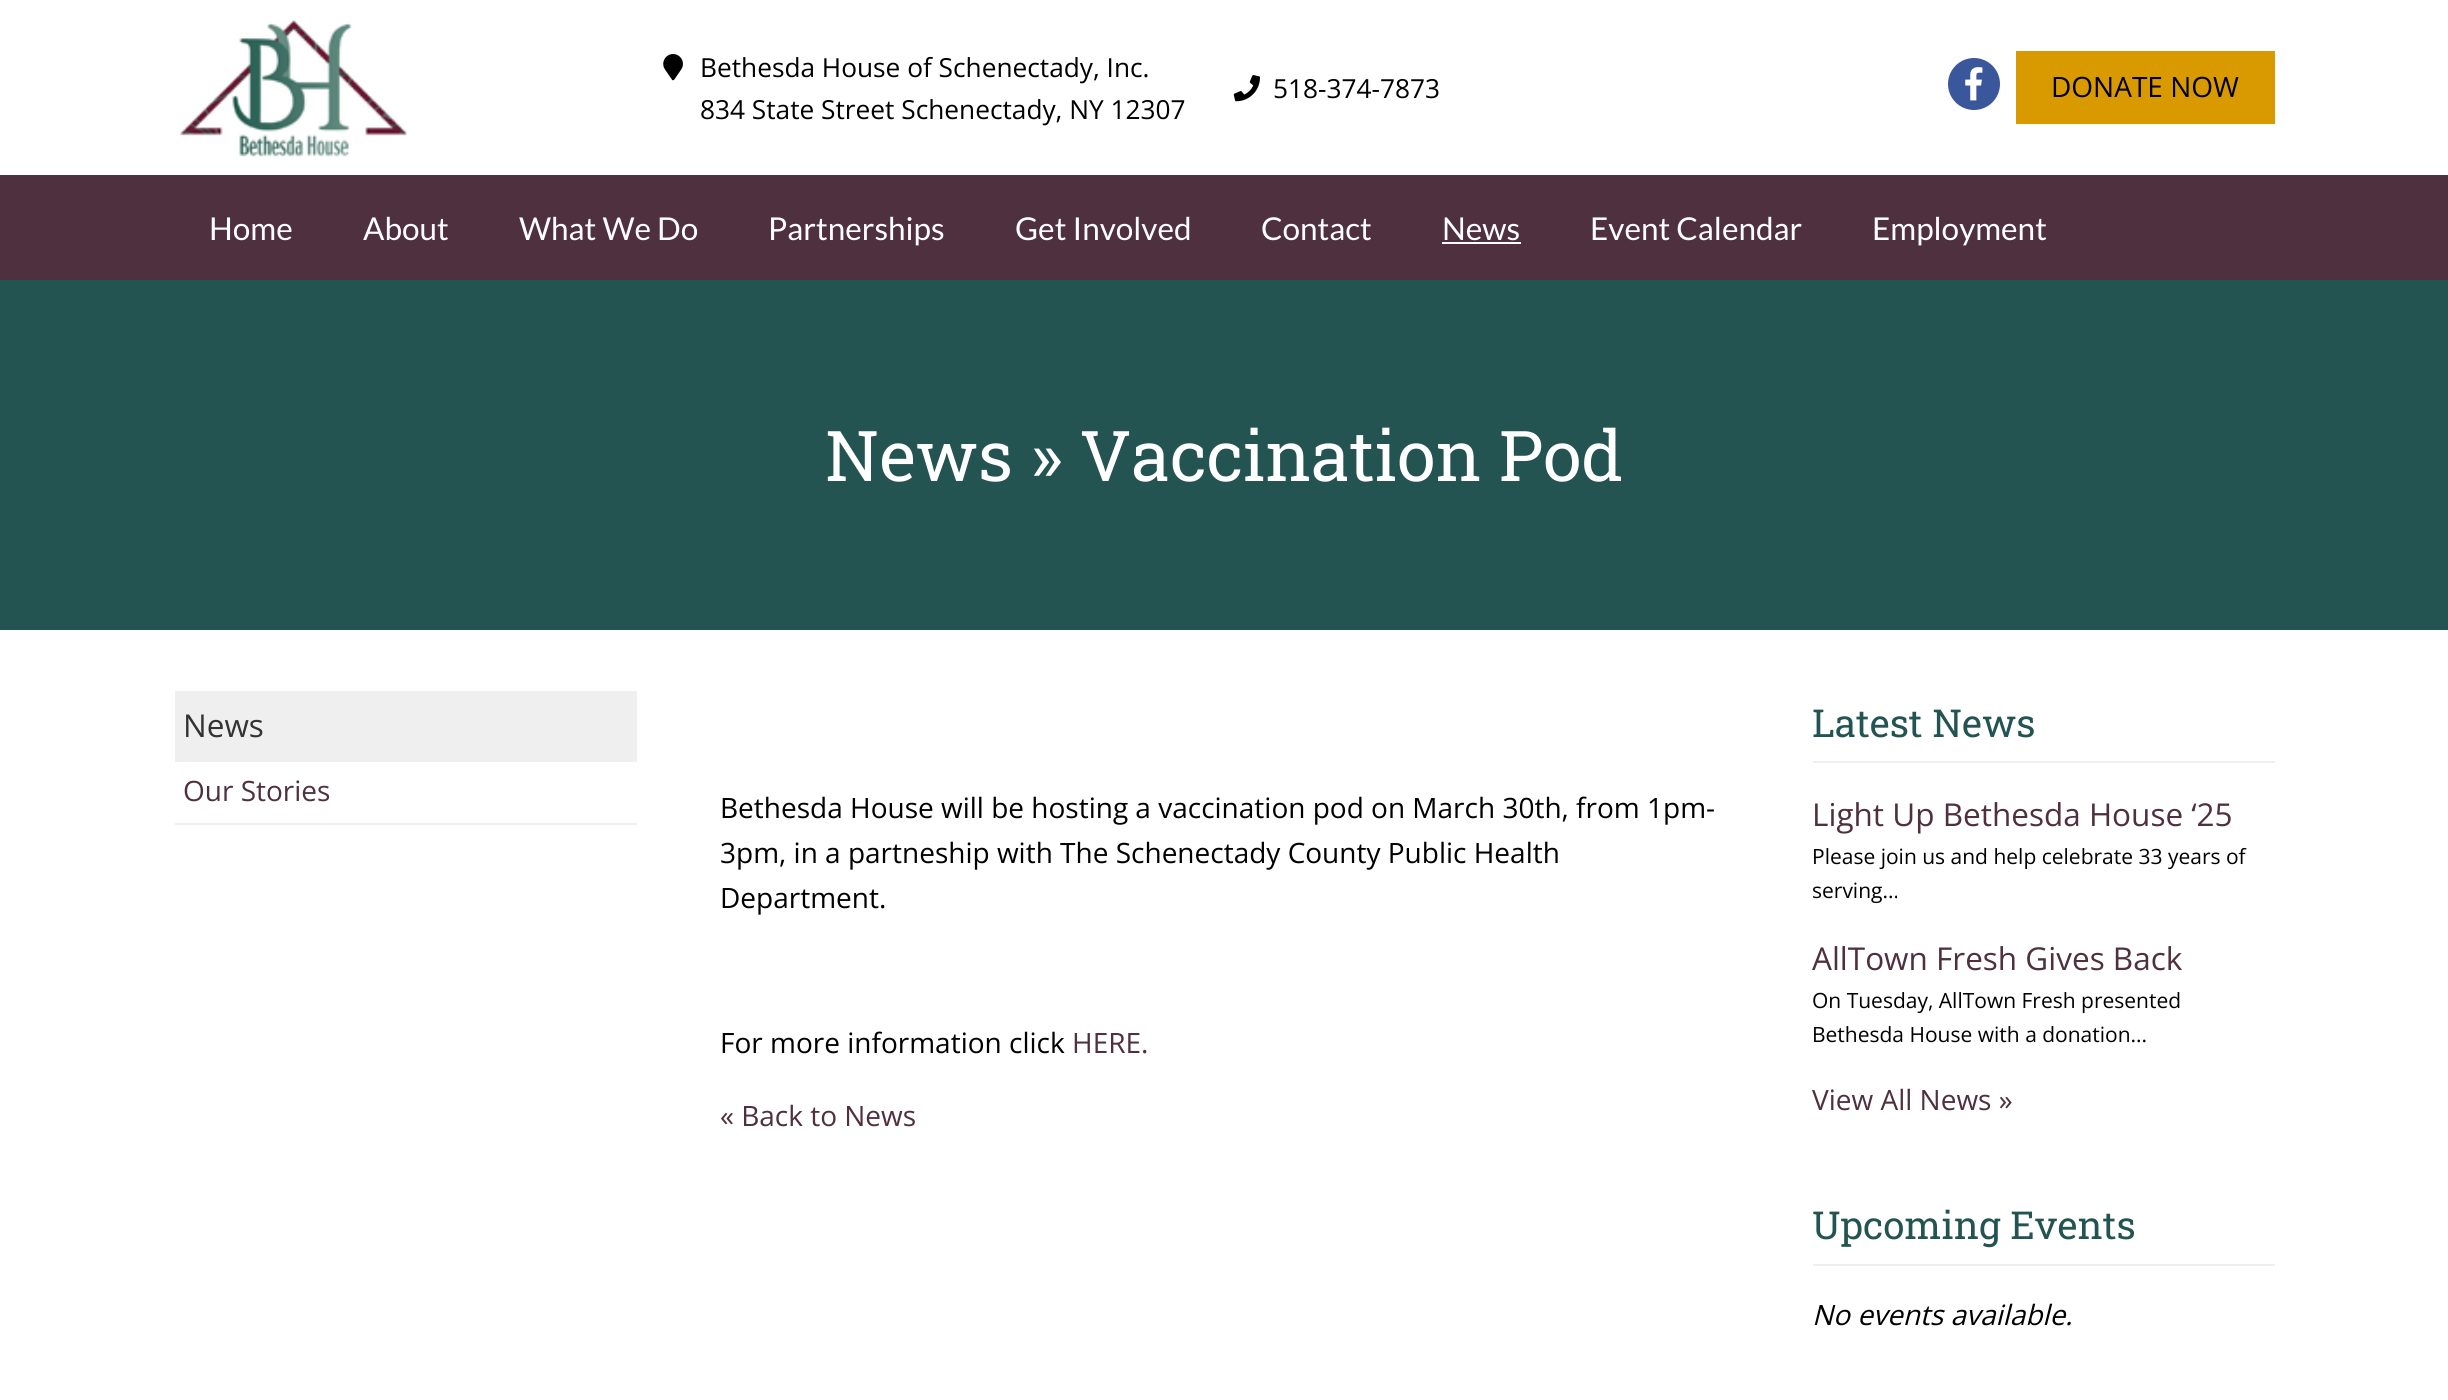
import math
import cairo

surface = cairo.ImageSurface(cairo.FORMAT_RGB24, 2448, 1400)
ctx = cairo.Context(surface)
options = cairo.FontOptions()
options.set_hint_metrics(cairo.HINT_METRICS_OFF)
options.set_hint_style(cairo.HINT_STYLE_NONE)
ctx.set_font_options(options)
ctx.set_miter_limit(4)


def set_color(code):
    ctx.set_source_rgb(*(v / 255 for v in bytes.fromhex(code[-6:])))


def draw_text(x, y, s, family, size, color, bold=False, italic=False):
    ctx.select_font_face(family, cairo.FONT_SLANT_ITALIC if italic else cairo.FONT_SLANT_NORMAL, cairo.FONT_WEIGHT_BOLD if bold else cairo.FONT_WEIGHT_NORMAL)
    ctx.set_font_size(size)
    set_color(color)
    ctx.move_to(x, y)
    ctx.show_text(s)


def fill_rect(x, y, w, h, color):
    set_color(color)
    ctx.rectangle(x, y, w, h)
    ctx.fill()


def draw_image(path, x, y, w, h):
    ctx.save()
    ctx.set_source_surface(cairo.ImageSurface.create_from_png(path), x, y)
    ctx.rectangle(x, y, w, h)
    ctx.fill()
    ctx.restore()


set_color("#ffffff")
ctx.paint()
draw_image("assets/img1.png", 180, 20, 227, 137)
draw_image("assets/img2.png", 663, 54, 20, 27)
draw_text(700, 77, "Bethesda House of Schenectady, Inc.", "Open Sans", 26.25, "#000000")
draw_text(700, 119, "834 State Street Schenectady, NY 12307", "Open Sans", 26.25, "#000000")
draw_image("assets/img3.png", 1233, 75, 27, 27)
draw_text(1273, 98, "518-374-7873", "Open Sans", 26.25, "#000000")
set_color("#3a579b")
ctx.new_path()
ctx.arc(1974, 84, 26, 0, 2 * math.pi)
ctx.fill()
draw_image("assets/img4.png", 1965, 67, 18, 34)
fill_rect(2016, 51, 259, 73, "#d99a00")
draw_text(2051, 97, "DONATE NOW", "Open Sans", 28, "#000000")
fill_rect(0, 175, 2448, 105, "#4f303f")
draw_text(209, 240, "Home", "Lato", 31.5, "#ffffff")
draw_text(363, 240, "About", "Lato", 31.5, "#ffffff")
draw_text(519, 240, "What We Do", "Lato", 31.5, "#ffffff")
draw_text(768, 240, "Partnerships", "Lato", 31.5, "#ffffff")
draw_text(1015, 240, "Get Involved", "Lato", 31.5, "#ffffff")
draw_text(1261, 240, "Contact", "Lato", 31.5, "#ffffff")
draw_text(1442, 240, "News", "Lato", 31.5, "#ffffff")
fill_rect(1442, 242, 79, 2, "#ffffff")
draw_text(1590, 240, "Event Calendar", "Lato", 31.5, "#ffffff")
draw_text(1872, 240, "Employment", "Lato", 31.5, "#ffffff")
fill_rect(0, 280, 2448, 350, "#235451")
draw_text(825, 481, "News » Vaccination Pod", "Roboto Slab", 70, "#ffffff")
fill_rect(175, 691, 462, 71, "#efefef")
draw_text(183, 737, "News", "Open Sans", 31.5, "#333333")
fill_rect(175, 823, 462, 2, "#efefef")
draw_text(183, 801, "Our Stories", "Open Sans", 28, "#4f303f")
fill_rect(1813, 761, 462, 2, "#efefef")
draw_text(1812, 737, "Latest News", "Roboto Slab", 38.5, "#235451")
draw_text(1812, 826, "Light Up Bethesda House ‘25", "Open Sans", 31.5, "#4f303f")
draw_text(1812, 864, "Please join us and help celebrate 33 years of", "Open Sans", 21, "#000000")
draw_text(1812, 898, "serving...", "Open Sans", 21, "#000000")
draw_text(1812, 970, "AllTown Fresh Gives Back", "Open Sans", 31.5, "#4f303f")
draw_text(1812, 1008, "On Tuesday, AllTown Fresh presented", "Open Sans", 21, "#000000")
draw_text(1812, 1042, "Bethesda House with a donation...", "Open Sans", 21, "#000000")
draw_text(1812, 1110, "View All News »", "Open Sans", 28, "#4f303f")
fill_rect(1813, 1264, 462, 2, "#efefef")
draw_text(1812, 1239, "Upcoming Events", "Roboto Slab", 38.5, "#235451")
draw_text(1812, 1325, "No events available.", "Open Sans", 28, "#000000", italic=True)
draw_text(720, 818, "Bethesda House will be hosting a vaccination pod on March 30th, from 1pm-", "Open Sans", 28, "#000000")
draw_text(720, 863, "3pm, in a partneship with The Schenectady County Public Health", "Open Sans", 28, "#000000")
draw_text(720, 908, "Department.", "Open Sans", 28, "#000000")
draw_text(720, 1053, "For more information click", "Open Sans", 28, "#000000")
draw_text(1072, 1053, "HERE.", "Open Sans", 28, "#4f303f")
draw_text(720, 1126, "« Back to News", "Open Sans", 28, "#4f303f")
surface.write_to_png("output.png")
